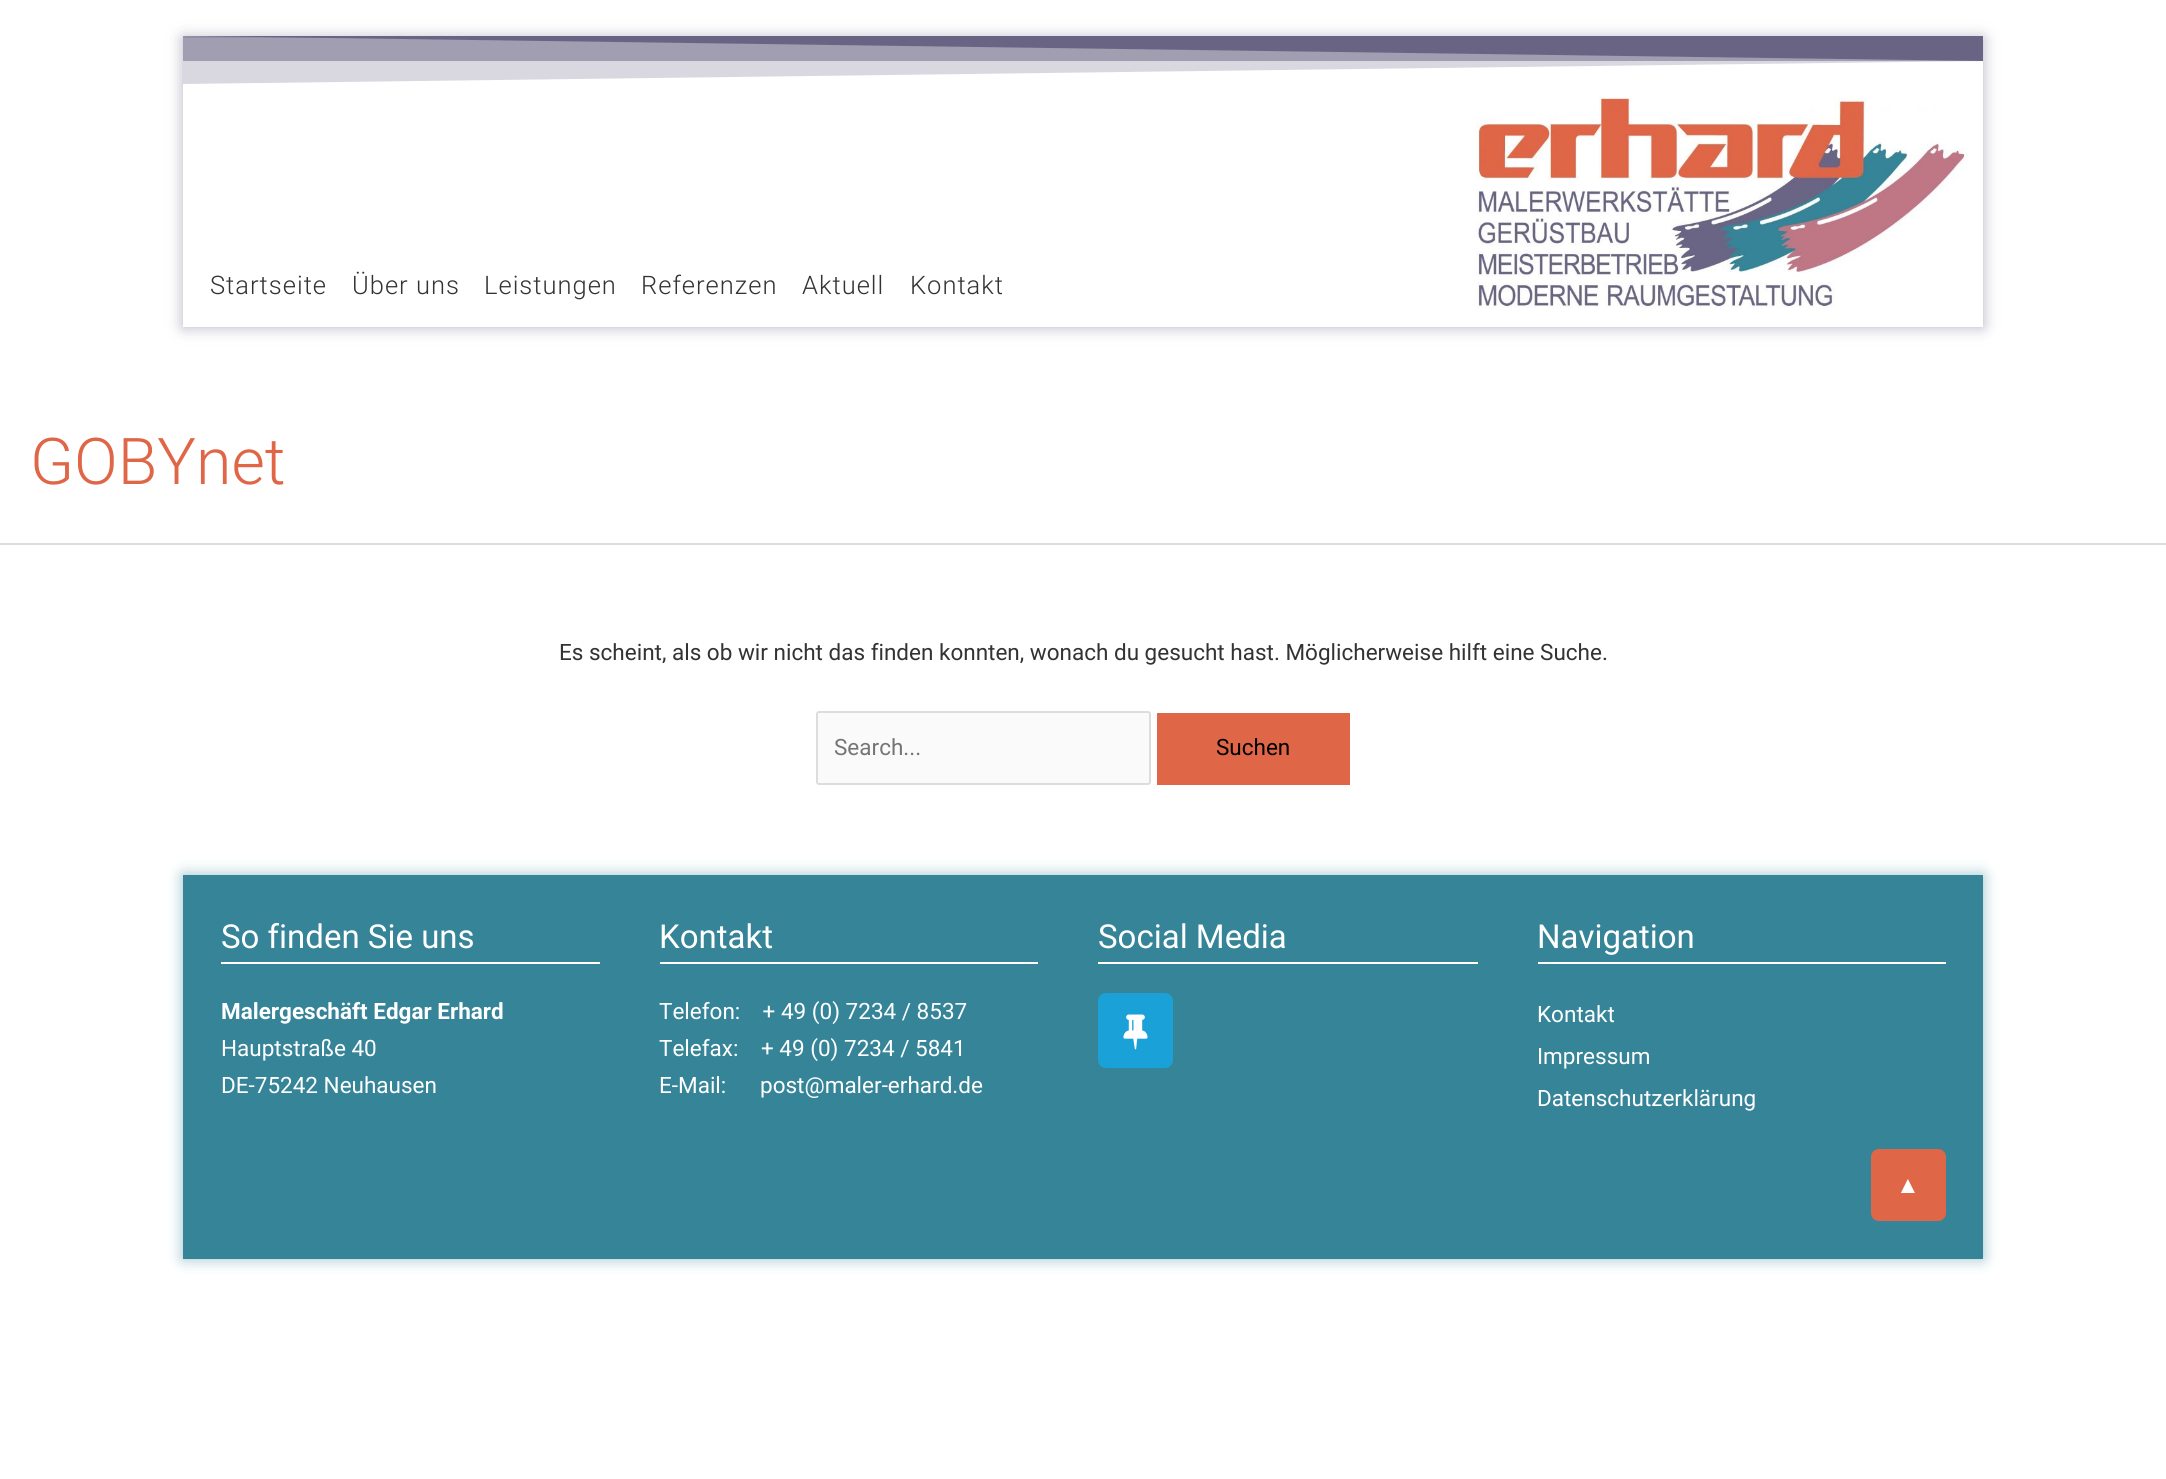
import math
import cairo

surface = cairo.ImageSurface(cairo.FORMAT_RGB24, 2166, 1479)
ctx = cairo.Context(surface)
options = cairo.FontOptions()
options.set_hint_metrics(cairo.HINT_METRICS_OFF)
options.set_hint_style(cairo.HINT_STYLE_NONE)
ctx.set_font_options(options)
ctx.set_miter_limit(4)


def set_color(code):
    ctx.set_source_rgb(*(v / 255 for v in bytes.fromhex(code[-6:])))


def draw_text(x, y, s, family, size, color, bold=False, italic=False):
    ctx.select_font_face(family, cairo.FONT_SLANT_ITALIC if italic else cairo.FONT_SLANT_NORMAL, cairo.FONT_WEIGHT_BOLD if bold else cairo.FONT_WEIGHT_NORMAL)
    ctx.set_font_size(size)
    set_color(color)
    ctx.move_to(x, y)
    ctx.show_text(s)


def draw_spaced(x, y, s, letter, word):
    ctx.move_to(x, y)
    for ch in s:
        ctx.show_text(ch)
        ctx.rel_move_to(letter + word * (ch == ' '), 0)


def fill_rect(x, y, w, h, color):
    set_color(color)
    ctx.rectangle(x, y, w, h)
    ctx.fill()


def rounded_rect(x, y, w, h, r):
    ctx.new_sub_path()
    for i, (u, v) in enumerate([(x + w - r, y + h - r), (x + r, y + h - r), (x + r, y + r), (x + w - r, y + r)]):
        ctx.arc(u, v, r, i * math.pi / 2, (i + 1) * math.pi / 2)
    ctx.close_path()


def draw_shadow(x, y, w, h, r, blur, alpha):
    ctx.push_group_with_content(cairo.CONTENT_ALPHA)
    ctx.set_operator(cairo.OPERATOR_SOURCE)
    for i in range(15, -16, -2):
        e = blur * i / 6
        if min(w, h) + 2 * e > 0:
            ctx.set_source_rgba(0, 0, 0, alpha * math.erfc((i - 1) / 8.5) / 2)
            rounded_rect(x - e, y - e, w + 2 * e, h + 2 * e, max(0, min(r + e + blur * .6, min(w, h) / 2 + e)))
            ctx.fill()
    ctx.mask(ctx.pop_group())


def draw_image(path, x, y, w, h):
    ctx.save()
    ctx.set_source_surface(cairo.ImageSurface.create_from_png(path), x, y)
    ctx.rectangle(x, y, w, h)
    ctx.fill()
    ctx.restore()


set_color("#ffffff")
ctx.paint()
ctx.save()
ctx.set_fill_rule(cairo.FILL_RULE_EVEN_ODD)
ctx.new_path()
ctx.move_to(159, 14)
ctx.line_to(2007, 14)
ctx.line_to(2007, 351)
ctx.line_to(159, 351)
ctx.close_path()
ctx.move_to(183, 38)
ctx.line_to(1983, 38)
ctx.line_to(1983, 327)
ctx.line_to(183, 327)
ctx.close_path()
ctx.clip()
set_color("#6a6585")
draw_shadow(183, 38, 1800, 289, 0, 7.5, 0.5)
ctx.restore()
ctx.save()
ctx.rectangle(183, 36, 1800, 48)
ctx.clip()
set_color("#6a6585")
ctx.new_path()
ctx.move_to(182, 36)
ctx.line_to(1984, 36)
ctx.line_to(1984, 61)
ctx.close_path()
ctx.fill()
ctx.restore()
ctx.set_source_rgba(0.416, 0.396, 0.522, 0.5)
ctx.rectangle(183, 36, 1799, 25)
ctx.fill()
ctx.save()
ctx.rectangle(183, 36, 1800, 48)
ctx.clip()
ctx.set_source_rgba(0.416, 0.396, 0.522, 0.25)
ctx.new_path()
ctx.move_to(1984, 36)
ctx.line_to(182, 36)
ctx.line_to(182, 84)
ctx.line_to(1984, 61)
ctx.close_path()
ctx.fill()
ctx.restore()
ctx.select_font_face("Roboto Light")
ctx.set_font_size(25.5)
set_color("#333333")
draw_spaced(210, 294, "Startseite", 1, 0)
draw_spaced(352, 294, "Über uns", 1, 0)
draw_spaced(484, 294, "Leistungen", 1, 0)
draw_spaced(641, 294, "Referenzen", 1, 0)
draw_spaced(802, 294, "Aktuell", 1, 0)
draw_spaced(910, 294, "Kontakt", 1, 0)
draw_image("assets/img1.png", 1476, 97, 492, 212)
fill_rect(0, 543, 2166, 2, "#dddddd")
draw_text(30, 484, "GOBYnet", "Roboto Light", 64.5, "#df6647")
draw_text(559, 660, "Es scheint, als ob wir nicht das finden konnten, wonach du gesucht hast. Möglicherweise hilft eine Suche.", "Roboto", 22.5, "#333333")
set_color("#fafafa")
rounded_rect(817, 712, 333, 72, 2)
ctx.fill_preserve()
set_color("#dddddd")
ctx.stroke()
draw_text(834, 755, "Search...", "Roboto", 22.5, "#757575")
fill_rect(1157, 713, 193, 72, "#df6647")
draw_text(1216, 755, "Suchen", "Roboto", 22.5, "#000000")
set_color("#368498")
draw_shadow(183, 875, 1800, 384, 0, 7.5, 0.5)
fill_rect(183, 875, 1800, 384, "#368498")
fill_rect(221, 962, 379, 2, "#ffffff")
draw_text(221, 948, "So finden Sie uns", "Roboto", 33, "#ffffff")
draw_text(221, 1019, "Malergeschäft Edgar Erhard", "Roboto", 22.5, "#ffffff", bold=True)
draw_text(221, 1056, "Hauptstraße 40", "Roboto", 22.5, "#ffffff")
draw_text(221, 1093, "DE-75242 Neuhausen", "Roboto", 22.5, "#ffffff")
fill_rect(660, 962, 378, 2, "#ffffff")
draw_text(659, 948, "Kontakt", "Roboto", 33, "#ffffff")
draw_text(659, 1019, "Telefon:    + 49 (0) 7234 / 8537", "Roboto", 22.5, "#ffffff")
draw_text(659, 1056, "Telefax:", "Roboto", 22.5, "#ffffff")
draw_text(761, 1056, "+ 49 (0) 7234 / 5841", "Roboto", 22.5, "#ffffff")
draw_text(659, 1093, "E-Mail:", "Roboto", 22.5, "#ffffff")
draw_text(760, 1093, "post@maler-erhard.de", "Roboto", 22.5, "#ffffff")
fill_rect(1098, 962, 380, 2, "#ffffff")
draw_text(1098, 948, "Social Media", "Roboto", 33, "#ffffff")
set_color("#1aa1d8")
rounded_rect(1098, 993, 75, 75, 8)
ctx.fill()
draw_image("assets/img2.png", 1123, 1014, 25, 36)
fill_rect(1538, 962, 408, 2, "#ffffff")
draw_text(1537, 948, "Navigation", "Roboto", 33, "#ffffff")
draw_text(1537, 1022, "Kontakt", "Roboto", 22.5, "#ffffff")
draw_text(1537, 1064, "Impressum", "Roboto", 22.5, "#ffffff")
draw_text(1537, 1106, "Datenschutzerklärung", "Roboto", 22.5, "#ffffff")
set_color("#df6647")
rounded_rect(1871, 1149, 75, 72, 8)
ctx.fill()
draw_text(1896, 1193, "▲", "Liberation Sans", 24, "#ffffff")
surface.write_to_png("output.png")
